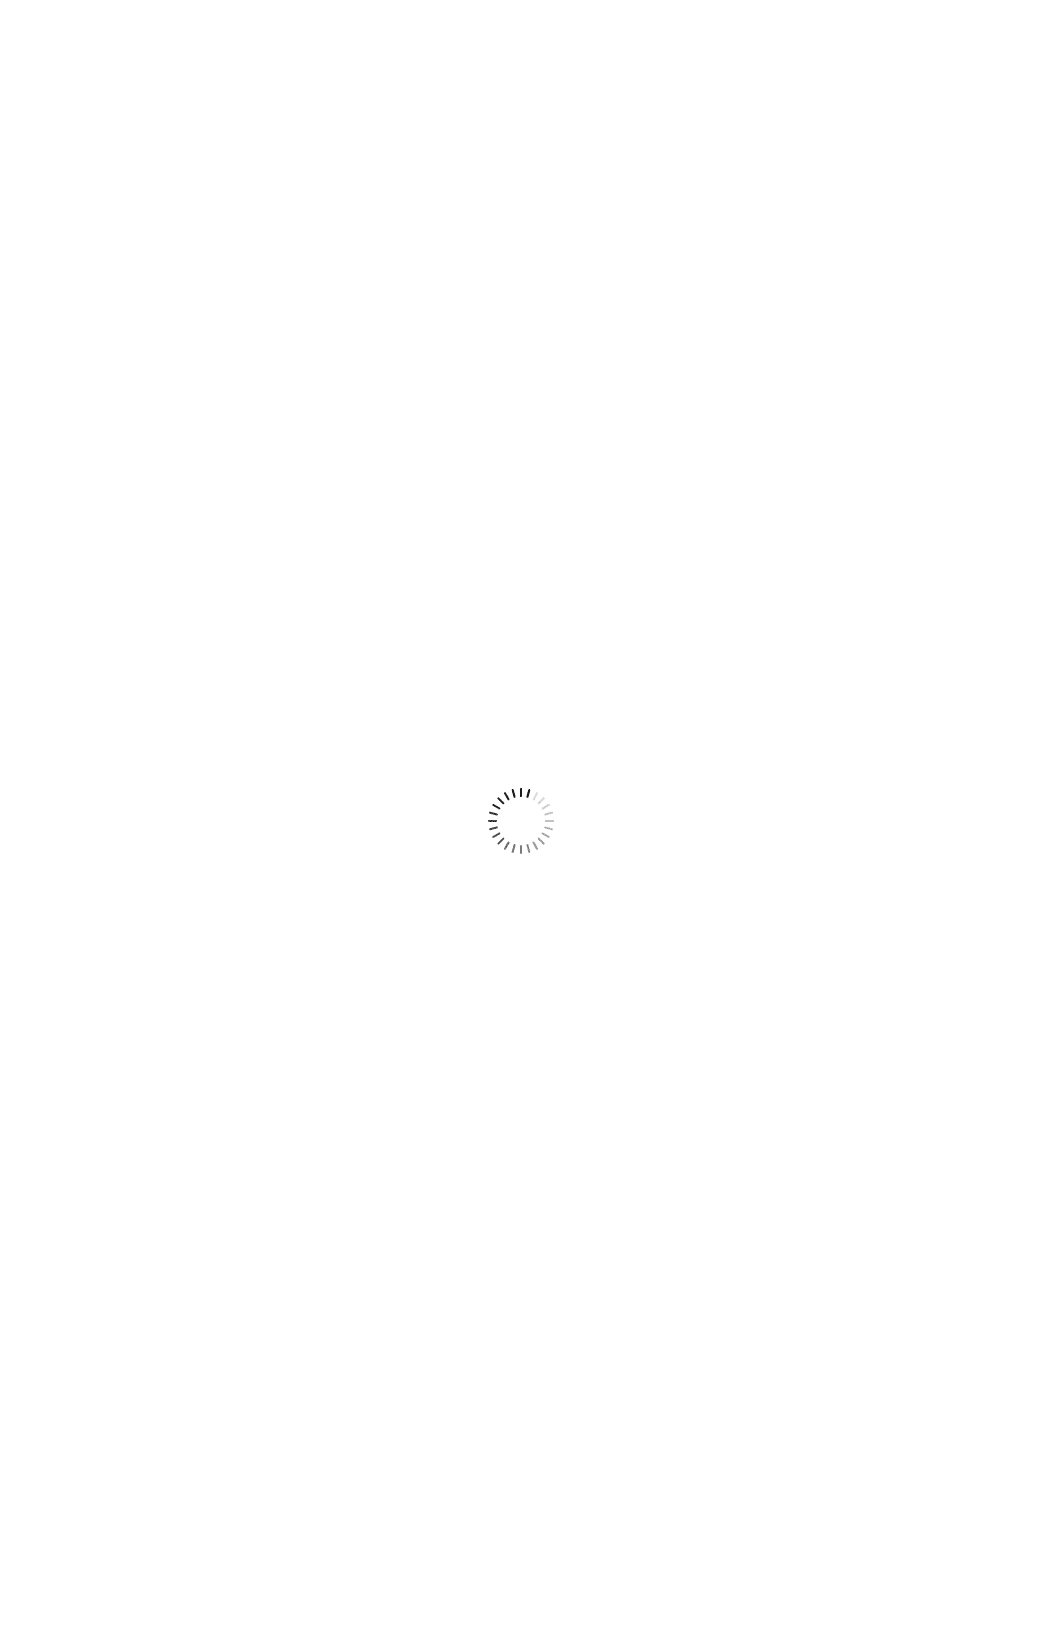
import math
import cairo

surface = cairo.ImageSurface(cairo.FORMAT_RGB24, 1041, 1642)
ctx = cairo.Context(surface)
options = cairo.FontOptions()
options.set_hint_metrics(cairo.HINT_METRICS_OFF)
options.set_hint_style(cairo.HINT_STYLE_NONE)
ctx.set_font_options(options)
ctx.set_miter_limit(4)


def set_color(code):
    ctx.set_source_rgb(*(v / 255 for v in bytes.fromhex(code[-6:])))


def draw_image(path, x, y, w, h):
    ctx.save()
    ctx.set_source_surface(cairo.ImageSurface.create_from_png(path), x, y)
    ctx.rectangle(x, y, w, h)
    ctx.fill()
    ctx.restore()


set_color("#ffffff")
ctx.paint()
draw_image("assets/img1.png", 488, 788, 66, 66)
surface.write_to_png("output.png")
